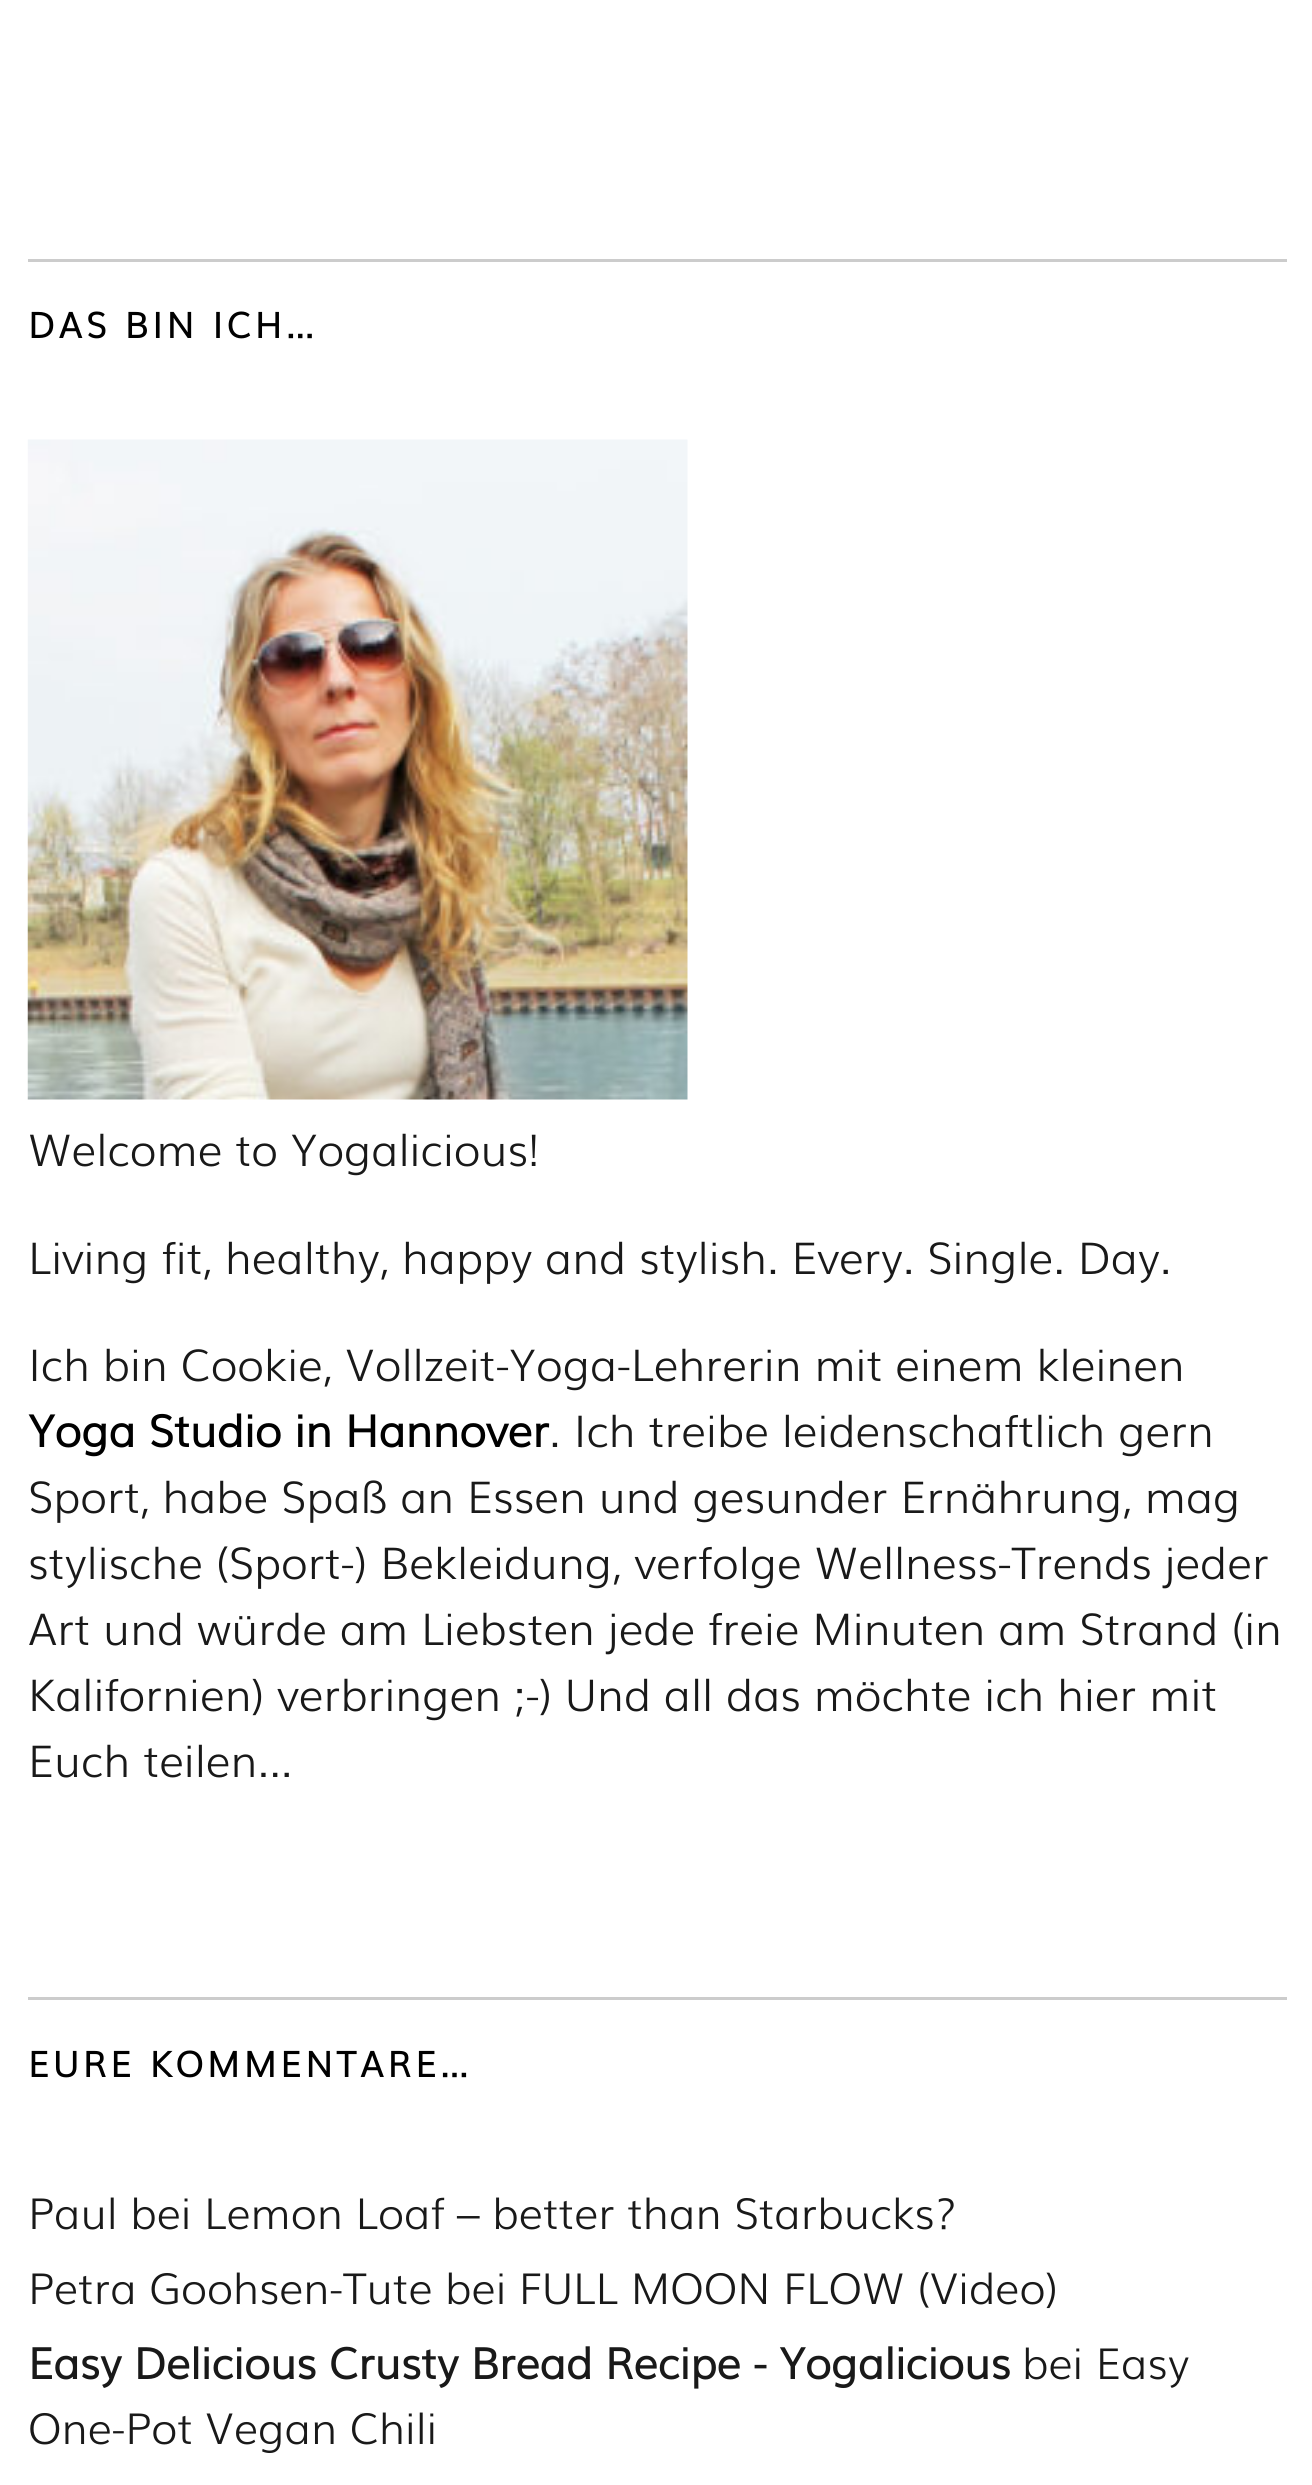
import math
import cairo

surface = cairo.ImageSurface(cairo.FORMAT_RGB24, 1312, 2485)
ctx = cairo.Context(surface)
options = cairo.FontOptions()
options.set_hint_metrics(cairo.HINT_METRICS_OFF)
options.set_hint_style(cairo.HINT_STYLE_NONE)
ctx.set_font_options(options)
ctx.set_miter_limit(4)


def set_color(code):
    ctx.set_source_rgb(*(v / 255 for v in bytes.fromhex(code[-6:])))


def draw_text(x, y, s, family, size, color, bold=False, italic=False):
    ctx.select_font_face(family, cairo.FONT_SLANT_ITALIC if italic else cairo.FONT_SLANT_NORMAL, cairo.FONT_WEIGHT_BOLD if bold else cairo.FONT_WEIGHT_NORMAL)
    ctx.set_font_size(size)
    set_color(color)
    ctx.move_to(x, y)
    ctx.show_text(s)


def draw_spaced(x, y, s, letter, word):
    ctx.move_to(x, y)
    for ch in s:
        ctx.show_text(ch)
        ctx.rel_move_to(letter + word * (ch == ' '), 0)


def fill_rect(x, y, w, h, color):
    set_color(color)
    ctx.rectangle(x, y, w, h)
    ctx.fill()


def draw_image(path, x, y, w, h):
    ctx.save()
    ctx.set_source_surface(cairo.ImageSurface.create_from_png(path), x, y)
    ctx.rectangle(x, y, w, h)
    ctx.fill()
    ctx.restore()


set_color("#ffffff")
ctx.paint()
fill_rect(28, 259, 1259, 3, "#cccccc")
fill_rect(28, 1997, 1259, 3, "#cccccc")
ctx.select_font_face("Muli", cairo.FONT_SLANT_NORMAL, cairo.FONT_WEIGHT_BOLD)
ctx.set_font_size(35.25)
set_color("#000000")
draw_spaced(28, 338, "DAS BIN ICH…", 4.1, 0)
draw_image("assets/img1.png", 27, 439, 661, 661)
draw_text(28, 1166, "Welcome to Yogalicious!", "Muli Light", 44, "#191919")
draw_text(28, 1274, "Living fit, healthy, happy and stylish. Every. Single. Day.", "Muli Light", 44, "#191919")
draw_text(28, 1381, "Ich bin Cookie, Vollzeit-Yoga-Lehrerin mit einem kleinen", "Muli Light", 44, "#191919")
draw_text(28, 1447, "Yoga Studio in Hannover", "Muli", 44, "#000000", bold=True)
draw_text(549, 1447, ". Ich treibe leidenschaftlich gern", "Muli Light", 44, "#191919")
draw_text(28, 1513, "Sport, habe Spaß an Essen und gesunder Ernährung, mag", "Muli Light", 44, "#191919")
draw_text(28, 1579, "stylische (Sport-) Bekleidung, verfolge Wellness-Trends jeder", "Muli Light", 44, "#191919")
draw_text(28, 1645, "Art und würde am Liebsten jede freie Minuten am Strand (in", "Muli Light", 44, "#191919")
draw_text(28, 1711, "Kalifornien) verbringen ;-) Und all das möchte ich hier mit", "Muli Light", 44, "#191919")
draw_text(28, 1777, "Euch teilen...", "Muli Light", 44, "#191919")
ctx.select_font_face("Muli", cairo.FONT_SLANT_NORMAL, cairo.FONT_WEIGHT_BOLD)
ctx.set_font_size(35.25)
set_color("#000000")
draw_spaced(28, 2077, "EURE KOMMENTARE…", 4.1, 0)
draw_text(28, 2229, "Paul bei Lemon Loaf – better than Starbucks?", "Muli Light", 42.9, "#191919")
draw_text(28, 2304, "Petra Goohsen-Tute bei FULL MOON FLOW (Video)", "Muli Light", 42.9, "#191919")
draw_text(28, 2379, "Easy Delicious Crusty Bread Recipe - Yogalicious", "Muli", 42.9, "#191919", bold=True)
draw_text(1022, 2379, "bei Easy", "Muli Light", 42.9, "#191919")
draw_text(28, 2444, "One-Pot Vegan Chili", "Muli Light", 42.9, "#191919")
surface.write_to_png("output.png")
